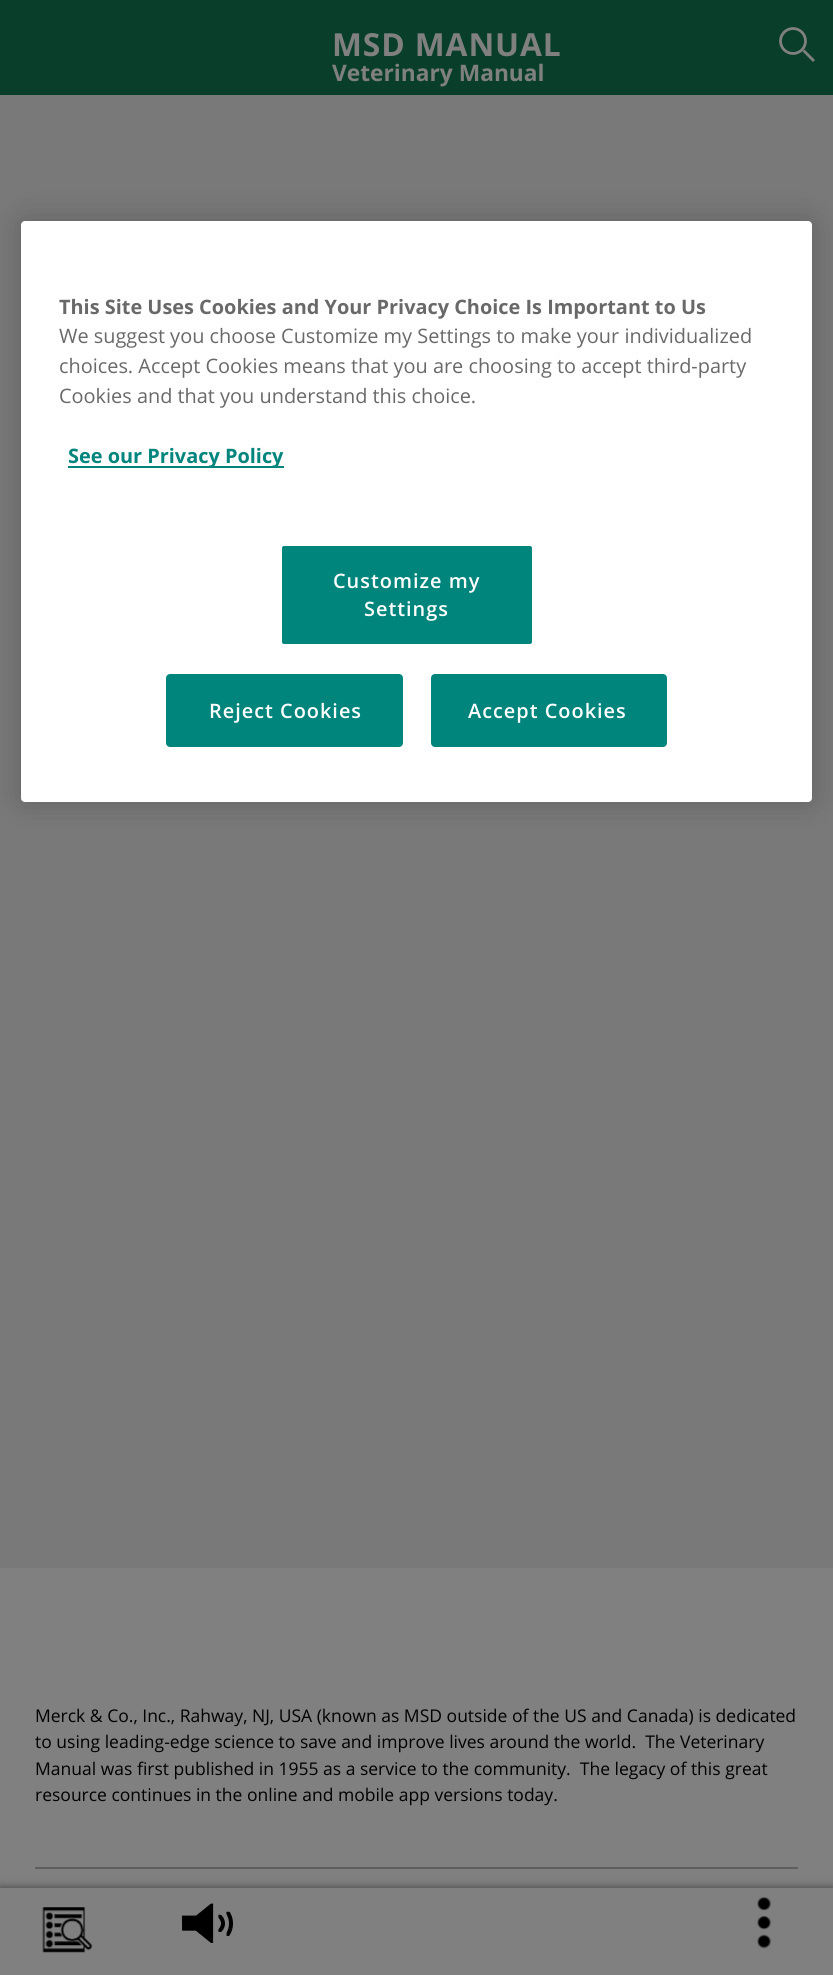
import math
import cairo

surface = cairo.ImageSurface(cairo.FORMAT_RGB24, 833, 1975)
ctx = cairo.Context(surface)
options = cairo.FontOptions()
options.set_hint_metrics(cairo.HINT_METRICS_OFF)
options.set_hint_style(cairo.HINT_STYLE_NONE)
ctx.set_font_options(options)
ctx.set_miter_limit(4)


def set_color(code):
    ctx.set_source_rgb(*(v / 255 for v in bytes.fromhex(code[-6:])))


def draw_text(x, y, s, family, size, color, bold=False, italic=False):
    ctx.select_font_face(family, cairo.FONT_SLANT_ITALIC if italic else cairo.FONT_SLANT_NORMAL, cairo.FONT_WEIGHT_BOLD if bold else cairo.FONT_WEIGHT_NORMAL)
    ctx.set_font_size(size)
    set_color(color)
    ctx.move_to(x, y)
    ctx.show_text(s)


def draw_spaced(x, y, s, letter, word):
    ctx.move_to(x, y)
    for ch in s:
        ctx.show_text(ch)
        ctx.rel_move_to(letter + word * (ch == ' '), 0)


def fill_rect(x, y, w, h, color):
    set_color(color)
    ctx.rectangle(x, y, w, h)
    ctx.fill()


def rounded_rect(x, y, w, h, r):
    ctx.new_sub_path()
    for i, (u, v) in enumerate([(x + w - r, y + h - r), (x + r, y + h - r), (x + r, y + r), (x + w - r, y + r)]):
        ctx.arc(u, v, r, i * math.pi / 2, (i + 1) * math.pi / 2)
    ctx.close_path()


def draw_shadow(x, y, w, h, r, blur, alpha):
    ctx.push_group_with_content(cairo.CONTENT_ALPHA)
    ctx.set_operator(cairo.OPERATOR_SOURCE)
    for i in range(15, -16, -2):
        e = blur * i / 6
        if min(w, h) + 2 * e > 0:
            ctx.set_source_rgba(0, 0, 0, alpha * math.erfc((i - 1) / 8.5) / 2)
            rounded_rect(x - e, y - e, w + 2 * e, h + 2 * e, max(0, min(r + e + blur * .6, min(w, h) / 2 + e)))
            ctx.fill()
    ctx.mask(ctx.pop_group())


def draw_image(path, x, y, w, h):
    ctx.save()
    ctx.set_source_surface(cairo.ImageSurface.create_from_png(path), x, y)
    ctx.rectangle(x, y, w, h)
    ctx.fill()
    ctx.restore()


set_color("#797979")
ctx.paint()
fill_rect(0, 0, 833, 95, "#083e2a")
ctx.select_font_face("Open Sans", cairo.FONT_SLANT_NORMAL, cairo.FONT_WEIGHT_BOLD)
ctx.set_font_size(31.75)
set_color("#808080")
draw_spaced(332, 56, "MSD MANUAL", 0.9, 0)
draw_text(332, 81, "Veterinary Manual", "Open Sans", 22.75, "#808080", bold=True)
ctx.new_path()
ctx.arc(793, 41, 12.5, 0, 2 * math.pi)
ctx.set_line_width(2.8)
ctx.stroke()
ctx.new_path()
ctx.move_to(814, 61)
ctx.line_to(803.5, 50.5)
ctx.stroke()
fill_rect(0, 1568, 833, 320, "#808080")
fill_rect(35, 1867, 763, 2, "#5e5e5e")
draw_text(35, 1722, "Merck & Co., Inc., Rahway, NJ, USA (known as MSD outside of the US and Canada) is dedicated", "Open Sans", 17.5, "#000000")
draw_text(35, 1748, "to using leading-edge science to save and improve lives around the world.  The Veterinary", "Open Sans", 17.5, "#000000")
draw_text(35, 1775, "Manual was first published in 1955 as a service to the community.  The legacy of this great", "Open Sans", 17.5, "#000000")
draw_text(35, 1801, "resource continues in the online and mobile app versions today.", "Open Sans", 17.5, "#000000")
set_color("#000000")
draw_shadow(0, 1888, 833, 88, 0, 4.5, 0.5)
fill_rect(0, 1888, 833, 87, "#808080")
draw_image("assets/img1.png", 42, 1907, 51, 46)
draw_image("assets/img2.png", 181, 1903, 52, 40)
draw_image("assets/img3.png", 757, 1897, 15, 52)
set_color("#000000")
draw_shadow(21, 221, 791, 581, 4, 16, 0.2)
set_color("#ffffff")
rounded_rect(21, 221, 791, 581, 4)
ctx.fill()
draw_text(59, 314, "This Site Uses Cookies and Your Privacy Choice Is Important to Us", "Open Sans", 19.9, "#696969", bold=True)
draw_text(59, 343, "We suggest you choose Customize my Settings to make your individualized", "Open Sans", 19.9, "#696969")
draw_text(59, 373, "choices. Accept Cookies means that you are choosing to accept third-party", "Open Sans", 19.9, "#696969")
draw_text(59, 403, "Cookies and that you understand this choice.", "Open Sans", 19.9, "#696969")
fill_rect(68, 466, 216, 2, "#00857c")
draw_text(68, 463, "See our Privacy Policy", "Open Sans", 19.9, "#00857c", bold=True)
rounded_rect(281, 545, 252, 100, 3)
ctx.fill_preserve()
set_color("#ffffff")
ctx.set_line_width(2)
ctx.stroke()
ctx.select_font_face("Open Sans SemiBold")
draw_spaced(333, 588, "Customize my", 1, 0)
draw_spaced(364, 616, "Settings", 1, 0)
set_color("#00857c")
rounded_rect(167, 675, 235, 71, 3)
ctx.fill_preserve()
ctx.stroke()
set_color("#ffffff")
draw_spaced(209, 718, "Reject Cookies", 1, 0)
set_color("#00857c")
rounded_rect(432, 675, 234, 71, 3)
ctx.fill_preserve()
ctx.stroke()
set_color("#ffffff")
draw_spaced(468, 718, "Accept Cookies", 1, 0)
surface.write_to_png("output.png")
